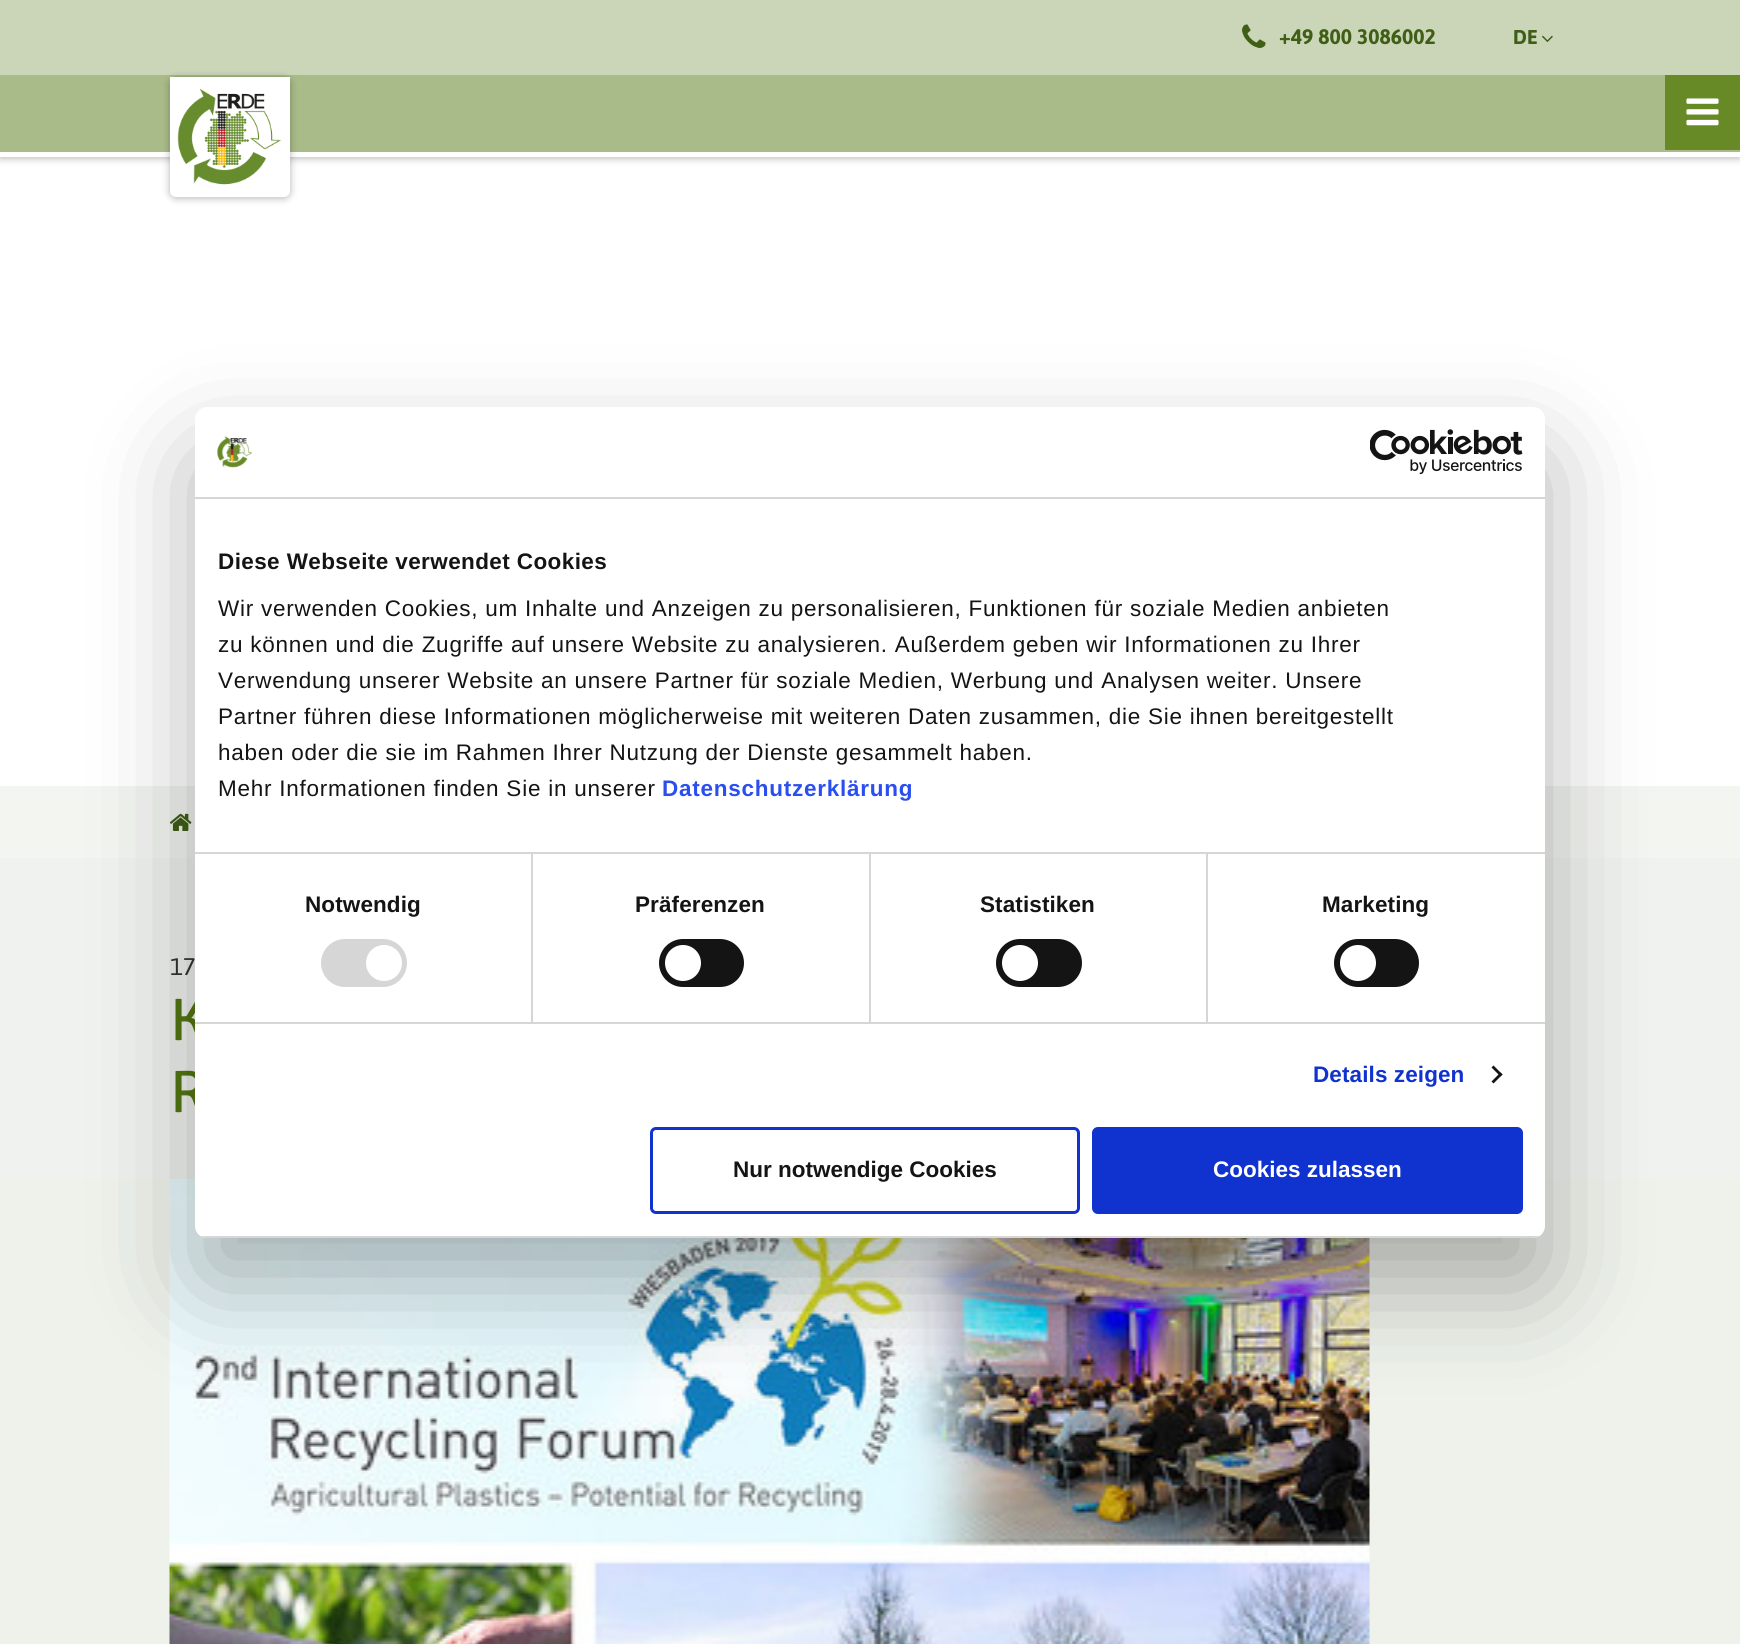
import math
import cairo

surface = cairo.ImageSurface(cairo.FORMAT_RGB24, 1740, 1644)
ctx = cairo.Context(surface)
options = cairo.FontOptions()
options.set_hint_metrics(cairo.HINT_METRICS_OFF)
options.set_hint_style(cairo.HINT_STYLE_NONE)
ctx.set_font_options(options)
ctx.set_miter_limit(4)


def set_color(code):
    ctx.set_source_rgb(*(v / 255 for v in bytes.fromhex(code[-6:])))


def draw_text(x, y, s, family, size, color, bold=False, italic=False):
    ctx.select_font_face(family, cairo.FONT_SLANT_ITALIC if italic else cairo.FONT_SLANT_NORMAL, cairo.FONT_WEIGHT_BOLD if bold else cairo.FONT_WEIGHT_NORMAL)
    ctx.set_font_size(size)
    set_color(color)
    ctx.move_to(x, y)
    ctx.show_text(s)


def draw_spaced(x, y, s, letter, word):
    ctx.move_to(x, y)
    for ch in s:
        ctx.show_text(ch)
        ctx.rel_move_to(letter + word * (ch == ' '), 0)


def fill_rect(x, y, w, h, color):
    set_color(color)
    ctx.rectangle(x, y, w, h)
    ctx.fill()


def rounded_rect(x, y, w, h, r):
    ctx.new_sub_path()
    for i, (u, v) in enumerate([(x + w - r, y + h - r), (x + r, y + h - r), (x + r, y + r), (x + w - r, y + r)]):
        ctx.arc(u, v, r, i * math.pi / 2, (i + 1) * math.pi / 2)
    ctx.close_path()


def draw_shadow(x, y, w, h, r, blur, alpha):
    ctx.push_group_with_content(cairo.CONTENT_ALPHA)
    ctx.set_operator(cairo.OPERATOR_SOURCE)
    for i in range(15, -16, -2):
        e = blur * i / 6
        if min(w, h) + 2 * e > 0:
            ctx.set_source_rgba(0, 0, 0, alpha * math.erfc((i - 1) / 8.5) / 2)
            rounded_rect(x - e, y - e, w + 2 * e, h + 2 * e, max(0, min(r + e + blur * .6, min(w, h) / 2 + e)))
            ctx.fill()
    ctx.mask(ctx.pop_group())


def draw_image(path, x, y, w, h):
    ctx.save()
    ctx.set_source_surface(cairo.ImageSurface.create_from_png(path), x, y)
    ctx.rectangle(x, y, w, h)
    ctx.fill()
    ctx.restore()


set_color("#f3f5f1")
ctx.paint()
fill_rect(0, 157, 1740, 629, "#ffffff")
set_color("#000000")
draw_shadow(0, 2, 1740, 156, 0, 4, 0.3)
fill_rect(0, 75, 1740, 77, "#a9bb88")
fill_rect(0, 152, 1740, 5, "#ffffff")
fill_rect(0, 0, 1740, 75, "#cbd6b8")
draw_image("assets/img1.png", 1242, 24, 24, 24)
draw_text(1279, 44, "+49 800 3086002", "Asap", 21, "#3f5e16", bold=True)
draw_text(1513, 44, "DE", "Asap", 20, "#3f5e16", bold=True)
draw_image("assets/img2.png", 1542, 35, 11, 7)
set_color("#000000")
draw_shadow(170, 78, 120, 120, 6, 4, 0.3)
set_color("#ffffff")
ctx.new_path()
ctx.move_to(170, 77)
ctx.line_to(290, 77)
ctx.line_to(290, 191)
ctx.curve_to(290, 194.5, 287.5, 197, 284, 197)
ctx.line_to(176, 197)
ctx.curve_to(172.5, 197, 170, 194.5, 170, 191)
ctx.close_path()
ctx.fill()
draw_image("assets/img3.png", 177, 88, 105, 97)
fill_rect(1665, 75, 75, 75, "#678a26")
draw_image("assets/img4.png", 1686, 98, 33, 28)
draw_image("assets/img5.png", 169, 813, 23, 18)
fill_rect(0, 858, 1740, 321, "#eff2ee")
draw_text(170, 975, "17", "Asap", 24, "#333333")
draw_text(170, 1040, "K", "Signika Negative", 60, "#537712")
draw_text(170, 1112, "R", "Signika Negative", 60, "#537712")
fill_rect(0, 1179, 1740, 465, "#eef2eb")
draw_image("assets/img6.png", 169, 1179, 1201, 465)
set_color("#000000")
draw_shadow(195, 455, 1350, 831, 12, 51, 0.3)
set_color("#ffffff")
rounded_rect(195, 407, 1350, 831, 12)
ctx.fill()
fill_rect(195, 497, 1350, 2, "#d6d6d6")
draw_image("assets/img7.png", 217, 436, 35, 32)
draw_image("assets/img8.png", 1370, 429, 153, 45)
fill_rect(195, 852, 1350, 2, "#d6d6d6")
ctx.select_font_face("Liberation Sans", cairo.FONT_SLANT_NORMAL, cairo.FONT_WEIGHT_BOLD)
ctx.set_font_size(22.5)
set_color("#141414")
draw_spaced(218, 569, "Diese Webseite verwendet Cookies", 0.4, 0)
ctx.select_font_face("Liberation Sans")
draw_spaced(218, 616, "Wir verwenden Cookies, um Inhalte und Anzeigen zu personalisieren, Funktionen für soziale Medien anbieten", 0.75, 0)
draw_spaced(218, 652, "zu können und die Zugriffe auf unsere Website zu analysieren. Außerdem geben wir Informationen zu Ihrer", 0.75, 0)
draw_spaced(218, 688, "Verwendung unserer Website an unsere Partner für soziale Medien, Werbung und Analysen weiter. Unsere", 0.75, 0)
draw_spaced(218, 724, "Partner führen diese Informationen möglicherweise mit weiteren Daten zusammen, die Sie ihnen bereitgestellt", 0.75, 0)
draw_spaced(218, 760, "haben oder die sie im Rahmen Ihrer Nutzung der Dienste gesammelt haben.", 0.75, 0)
draw_spaced(218, 796, "Mehr Informationen finden Sie in unserer", 0.75, 0)
ctx.select_font_face("Liberation Sans", cairo.FONT_SLANT_NORMAL, cairo.FONT_WEIGHT_BOLD)
set_color("#2a4eef")
draw_spaced(662, 796, "Datenschutzerklärung", 0.75, 0)
fill_rect(195, 1022, 1350, 2, "#d6d6d6")
fill_rect(531, 854, 2, 168, "#d6d6d6")
set_color("#141414")
draw_spaced(305, 912, "Notwendig", 0.1, 0)
set_color("#d6d6d6")
rounded_rect(321, 939, 86, 48, 24)
ctx.fill()
set_color("#ffffff")
ctx.arc(384, 963, 18, 0, 2 * math.pi)
ctx.fill()
fill_rect(869, 854, 2, 168, "#d6d6d6")
set_color("#141414")
draw_spaced(635, 912, "Präferenzen", 0.1, 0)
rounded_rect(659, 939, 85, 48, 24)
ctx.fill()
set_color("#ffffff")
ctx.arc(683, 963, 18, 0, 2 * math.pi)
ctx.fill()
fill_rect(1206, 854, 2, 168, "#d6d6d6")
set_color("#141414")
draw_spaced(980, 912, "Statistiken", 0.1, 0)
rounded_rect(996, 939, 86, 48, 24)
ctx.fill()
set_color("#ffffff")
ctx.arc(1020, 963, 18, 0, 2 * math.pi)
ctx.fill()
set_color("#141414")
draw_spaced(1322, 912, "Marketing", 0.1, 0)
rounded_rect(1334, 939, 85, 48, 24)
ctx.fill()
set_color("#ffffff")
ctx.arc(1358, 963, 18, 0, 2 * math.pi)
ctx.fill()
set_color("#1032cf")
draw_spaced(1313, 1082, "Details zeigen", 0.1, 0)
set_color("#141414")
ctx.new_path()
ctx.move_to(1493.5, 1065.5)
ctx.line_to(1502.5, 1074.5)
ctx.line_to(1500.5, 1076.5)
ctx.line_to(1491.5, 1067.5)
ctx.close_path()
ctx.fill()
ctx.new_path()
ctx.move_to(1500.5, 1072.5)
ctx.line_to(1502.5, 1074.5)
ctx.line_to(1493.5, 1083.5)
ctx.line_to(1491.5, 1081.5)
ctx.close_path()
ctx.fill()
ctx.save()
rounded_rect(195, 407, 1350, 831, 12)
ctx.clip()
fill_rect(195, 1236, 1350, 2, "#d6d6d6")
ctx.restore()
rounded_rect(651.5, 1128.5, 427, 84, 4.5)
set_color("#1032cf")
ctx.set_line_width(3)
ctx.stroke()
draw_text(733, 1177, "Nur notwendige Cookies", "Liberation Sans", 22.5, "#141414", bold=True)
set_color("#1032cf")
rounded_rect(1093.5, 1128.5, 428, 84, 4.5)
ctx.fill_preserve()
ctx.stroke()
draw_text(1213, 1177, "Cookies zulassen", "Liberation Sans", 22.5, "#ffffff", bold=True)
surface.write_to_png("output.png")
